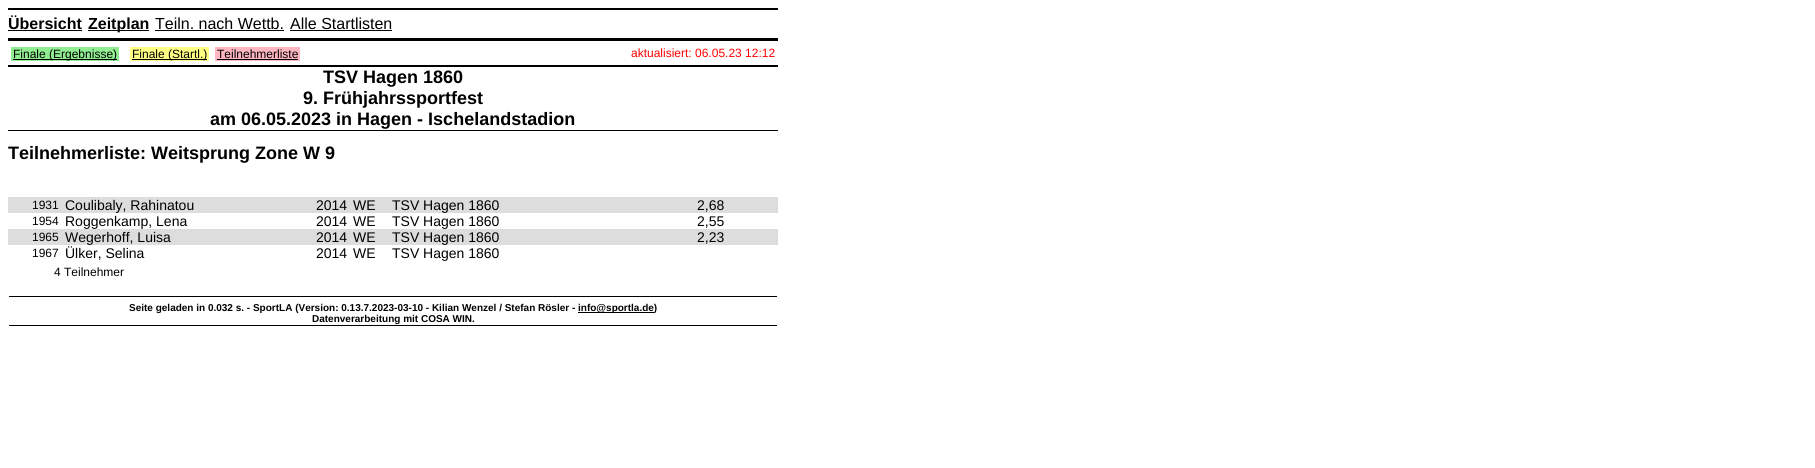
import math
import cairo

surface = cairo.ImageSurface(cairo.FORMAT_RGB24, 1815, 468)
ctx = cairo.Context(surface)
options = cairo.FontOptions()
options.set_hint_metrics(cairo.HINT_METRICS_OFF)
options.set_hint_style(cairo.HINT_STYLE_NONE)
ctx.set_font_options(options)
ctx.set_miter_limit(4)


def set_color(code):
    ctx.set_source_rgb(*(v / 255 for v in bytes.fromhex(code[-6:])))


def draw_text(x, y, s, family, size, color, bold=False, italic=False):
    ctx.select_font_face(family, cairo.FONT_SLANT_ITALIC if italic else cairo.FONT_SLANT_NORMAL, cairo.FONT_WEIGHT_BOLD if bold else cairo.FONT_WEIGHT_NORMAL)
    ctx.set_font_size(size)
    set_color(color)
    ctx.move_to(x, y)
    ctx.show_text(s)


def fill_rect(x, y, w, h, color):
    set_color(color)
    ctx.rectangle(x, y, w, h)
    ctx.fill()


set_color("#ffffff")
ctx.paint()
fill_rect(8, 8, 770, 2, "#000000")
fill_rect(8, 38, 770, 3, "#000000")
draw_text(8, 29, "Übersicht", "Liberation Sans", 16, "#000000", bold=True)
fill_rect(8, 30, 74, 1, "#000000")
fill_rect(88, 30, 61, 1, "#000000")
draw_text(88, 29, "Zeitplan", "Liberation Sans", 16, "#000000", bold=True)
draw_text(155, 29, "Teiln. nach Wettb.", "Liberation Sans", 16, "#000000")
fill_rect(155, 30, 129, 1, "#000000")
draw_text(290, 29, "Alle Startlisten", "Liberation Sans", 16, "#000000")
fill_rect(290, 30, 102, 1, "#000000")
fill_rect(8, 65, 770, 2, "#000000")
fill_rect(11, 47, 108, 14, "#90ee90")
fill_rect(13, 59, 104, 1, "#000000")
draw_text(13, 58, "Finale (Ergebnisse)", "Liberation Sans", 12, "#000000")
fill_rect(130, 47, 79, 14, "#ffff83")
fill_rect(132, 59, 75, 1, "#000000")
draw_text(132, 58, "Finale (Startl.)", "Liberation Sans", 12, "#000000")
fill_rect(215, 47, 85, 14, "#ffb6c1")
draw_text(217, 58, "Teilnehmerliste", "Liberation Sans", 12, "#000000")
fill_rect(217, 59, 81, 1, "#000000")
draw_text(631, 57, "aktualisiert: 06.05.23 12:12", "Liberation Sans", 12, "#ff0000")
draw_text(323, 83, "TSV Hagen 1860", "Liberation Sans", 18, "#000000", bold=True)
draw_text(303, 104, "9. Frühjahrssportfest", "Liberation Sans", 18, "#000000", bold=True)
fill_rect(8, 130, 770, 1, "#000000")
draw_text(210, 125, "am 06.05.2023 in Hagen - Ischelandstadion", "Liberation Sans", 18, "#000000", bold=True)
draw_text(8, 159, "Teilnehmerliste: Weitsprung Zone W 9", "Liberation Sans", 18, "#000000", bold=True)
fill_rect(8, 197, 770, 16, "#dddddd")
draw_text(32, 209, "1931", "Liberation Sans", 12, "#000000")
draw_text(65, 210, "Coulibaly, Rahinatou", "Liberation Sans", 14, "#000000")
draw_text(316, 210, "2014", "Liberation Sans", 14, "#000000")
draw_text(353, 210, "WE", "Liberation Sans", 14, "#000000")
draw_text(392, 210, "TSV Hagen 1860", "Liberation Sans", 14, "#000000")
draw_text(697, 210, "2,68", "Liberation Sans", 14, "#000000")
draw_text(32, 225, "1954", "Liberation Sans", 12, "#000000")
draw_text(65, 226, "Roggenkamp, Lena", "Liberation Sans", 14, "#000000")
draw_text(316, 226, "2014", "Liberation Sans", 14, "#000000")
draw_text(353, 226, "WE", "Liberation Sans", 14, "#000000")
draw_text(392, 226, "TSV Hagen 1860", "Liberation Sans", 14, "#000000")
draw_text(697, 226, "2,55", "Liberation Sans", 14, "#000000")
fill_rect(8, 229, 770, 16, "#dddddd")
draw_text(32, 241, "1965", "Liberation Sans", 12, "#000000")
draw_text(65, 242, "Wegerhoff, Luisa", "Liberation Sans", 14, "#000000")
draw_text(316, 242, "2014", "Liberation Sans", 14, "#000000")
draw_text(353, 242, "WE", "Liberation Sans", 14, "#000000")
draw_text(392, 242, "TSV Hagen 1860", "Liberation Sans", 14, "#000000")
draw_text(697, 242, "2,23", "Liberation Sans", 14, "#000000")
draw_text(32, 257, "1967", "Liberation Sans", 12, "#000000")
draw_text(65, 258, "Ülker, Selina", "Liberation Sans", 14, "#000000")
draw_text(316, 258, "2014", "Liberation Sans", 14, "#000000")
draw_text(353, 258, "WE", "Liberation Sans", 14, "#000000")
draw_text(392, 258, "TSV Hagen 1860", "Liberation Sans", 14, "#000000")
draw_text(54, 276, "4 Teilnehmer", "Liberation Sans", 12, "#000000")
fill_rect(9, 296, 768, 1, "#000000")
fill_rect(9, 325, 768, 1, "#000000")
draw_text(129, 311, "Seite geladen in 0.032 s. - SportLA (Version: 0.13.7.2023-03-10 - Kilian Wenzel / Stefan Rösler -", "Liberation Sans", 10, "#000000", bold=True)
fill_rect(578, 312, 76, 1, "#000000")
draw_text(578, 311, "info@sportla.de)", "Liberation Sans", 10, "#000000", bold=True)
draw_text(312, 322, "Datenverarbeitung mit COSA WIN.", "Liberation Sans", 10, "#000000", bold=True)
surface.write_to_png("output.png")
